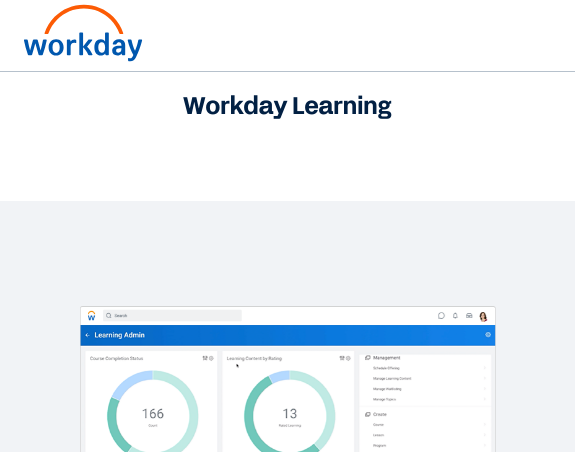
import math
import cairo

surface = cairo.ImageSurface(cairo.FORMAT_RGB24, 575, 452)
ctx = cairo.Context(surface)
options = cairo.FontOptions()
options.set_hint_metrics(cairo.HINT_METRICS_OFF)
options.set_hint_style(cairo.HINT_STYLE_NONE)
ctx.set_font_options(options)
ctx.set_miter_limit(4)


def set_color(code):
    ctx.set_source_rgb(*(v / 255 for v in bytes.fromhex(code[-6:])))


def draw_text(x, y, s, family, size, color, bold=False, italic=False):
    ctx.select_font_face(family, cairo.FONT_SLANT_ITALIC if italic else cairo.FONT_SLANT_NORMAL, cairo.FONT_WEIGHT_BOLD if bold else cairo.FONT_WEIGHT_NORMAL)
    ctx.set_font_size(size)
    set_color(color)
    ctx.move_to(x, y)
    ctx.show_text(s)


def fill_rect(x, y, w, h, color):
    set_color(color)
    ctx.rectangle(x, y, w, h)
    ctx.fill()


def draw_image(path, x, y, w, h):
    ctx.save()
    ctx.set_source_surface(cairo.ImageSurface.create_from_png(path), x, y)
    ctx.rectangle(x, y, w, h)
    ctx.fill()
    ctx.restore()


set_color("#ffffff")
ctx.paint()
fill_rect(0, 71, 575, 1, "#b6c1cc")
draw_image("assets/img1.png", 24, 4, 119, 58)
draw_text(183, 114, "Workday Learning", "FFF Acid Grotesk", 24, "#022043", bold=True)
fill_rect(0, 201, 575, 251, "#f1f3f6")
draw_image("assets/img2.png", 80, 306, 416, 146)
surface.write_to_png("output.png")
